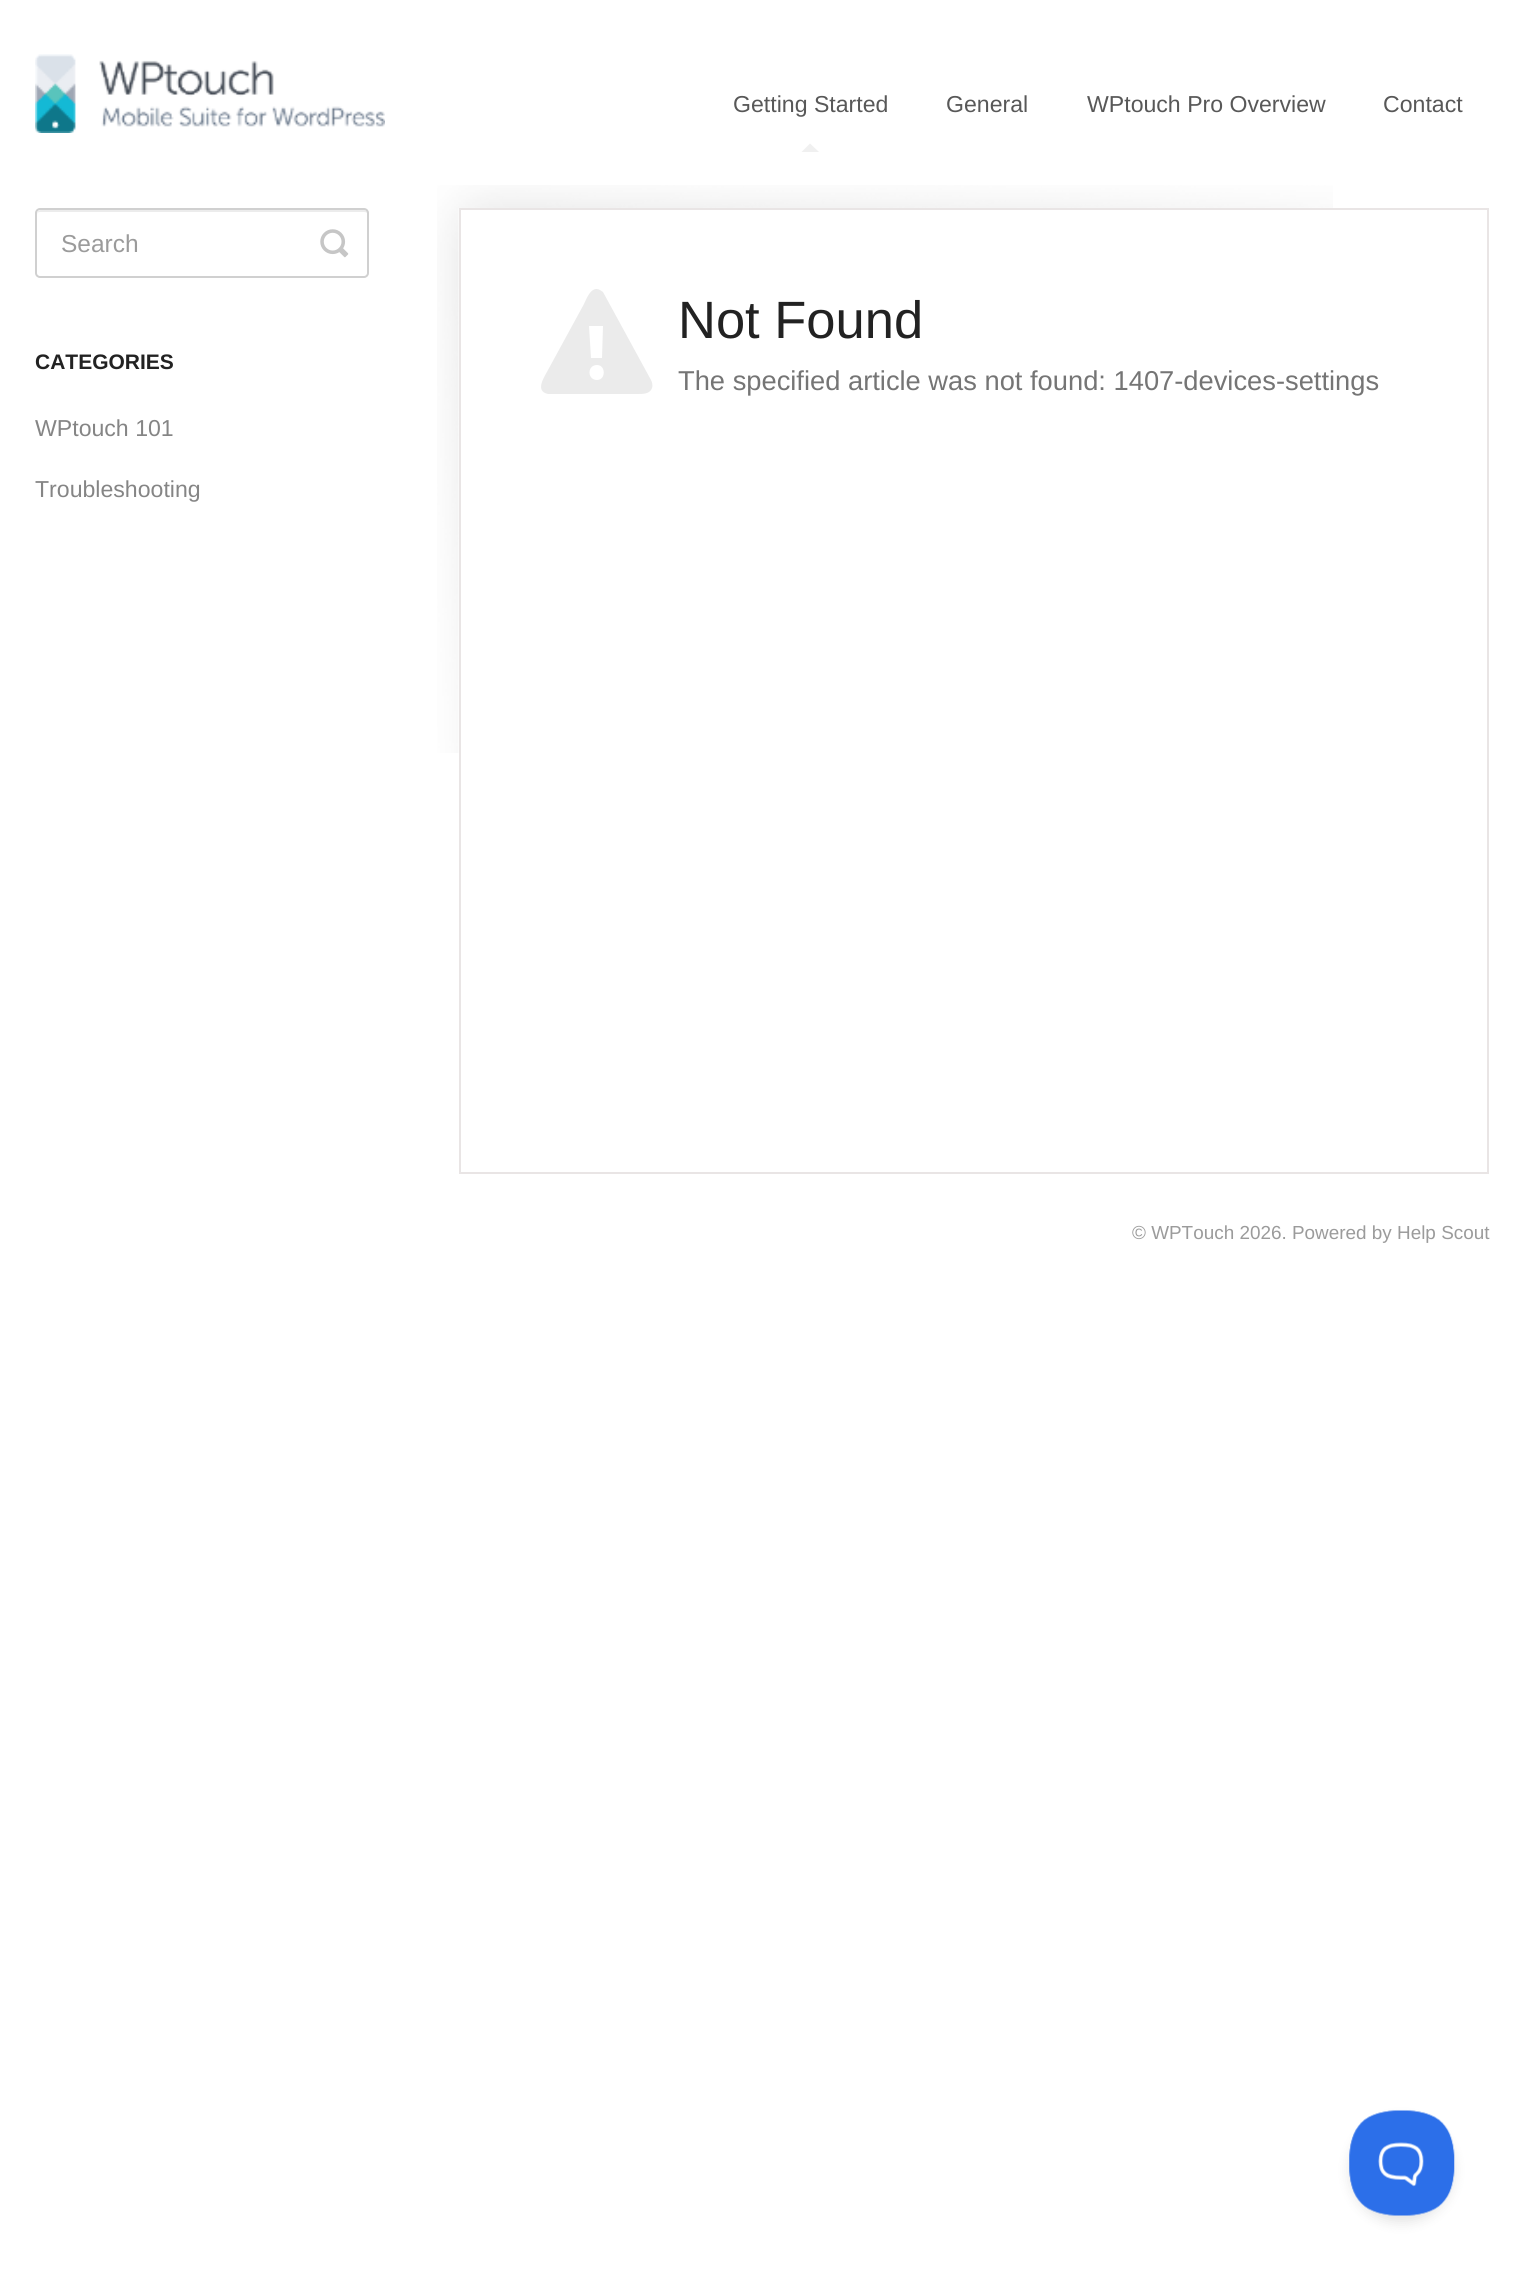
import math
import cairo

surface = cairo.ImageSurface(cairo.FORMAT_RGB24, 1524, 2285)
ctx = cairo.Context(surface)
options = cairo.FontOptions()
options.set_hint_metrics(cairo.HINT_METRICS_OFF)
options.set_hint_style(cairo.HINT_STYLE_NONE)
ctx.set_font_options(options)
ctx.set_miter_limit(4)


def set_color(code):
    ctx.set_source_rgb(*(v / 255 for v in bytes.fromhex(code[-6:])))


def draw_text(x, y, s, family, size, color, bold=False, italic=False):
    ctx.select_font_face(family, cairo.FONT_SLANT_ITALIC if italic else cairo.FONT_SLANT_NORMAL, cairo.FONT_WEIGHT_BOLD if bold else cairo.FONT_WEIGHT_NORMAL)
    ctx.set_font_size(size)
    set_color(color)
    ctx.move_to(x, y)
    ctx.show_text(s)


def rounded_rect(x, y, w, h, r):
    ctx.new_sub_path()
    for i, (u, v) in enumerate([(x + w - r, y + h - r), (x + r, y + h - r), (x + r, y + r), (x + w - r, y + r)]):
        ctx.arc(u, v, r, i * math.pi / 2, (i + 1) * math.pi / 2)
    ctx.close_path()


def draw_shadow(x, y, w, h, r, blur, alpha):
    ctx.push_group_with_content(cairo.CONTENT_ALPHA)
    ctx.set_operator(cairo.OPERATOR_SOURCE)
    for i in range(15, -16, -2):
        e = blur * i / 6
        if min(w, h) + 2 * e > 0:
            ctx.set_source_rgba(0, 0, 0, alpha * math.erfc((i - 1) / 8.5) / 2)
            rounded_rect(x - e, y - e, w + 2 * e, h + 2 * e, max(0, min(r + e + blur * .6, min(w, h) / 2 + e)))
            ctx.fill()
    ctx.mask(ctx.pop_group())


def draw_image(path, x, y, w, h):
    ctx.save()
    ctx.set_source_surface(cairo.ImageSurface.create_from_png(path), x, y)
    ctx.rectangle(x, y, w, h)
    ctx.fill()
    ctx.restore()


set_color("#ffffff")
ctx.paint()
draw_image("assets/img1.png", 35, 54, 350, 79)
draw_text(733, 112, "Getting Started", "Liberation Sans", 23.1, "#585858")
set_color("#f0f0f0")
ctx.new_path()
ctx.move_to(819, 152)
ctx.line_to(801.5, 152)
ctx.line_to(810, 143.5)
ctx.close_path()
ctx.fill()
draw_text(946, 112, "General", "Liberation Sans", 23.1, "#585858")
draw_text(1087, 112, "WPtouch Pro Overview", "Liberation Sans", 23.1, "#585858")
draw_text(1383, 112, "Contact", "Liberation Sans", 23.1, "#585858")
set_color("#ececec")
ctx.new_path()
ctx.move_to(40, 212)
ctx.line_to(364, 212)
ctx.curve_to(366, 212, 368, 213, 368, 215)
ctx.line_to(368, 214)
ctx.curve_to(368, 212, 366, 210, 364, 210)
ctx.line_to(41, 210)
ctx.curve_to(39, 210, 37, 212, 37, 214)
ctx.line_to(37, 215)
ctx.curve_to(37, 213, 38, 212, 40, 212)
ctx.close_path()
ctx.fill()
rounded_rect(36, 209, 332, 68, 4)
set_color("#d0d0d0")
ctx.stroke()
draw_text(61, 252, "Search", "Liberation Sans", 24.5, "#9b9b9b")
draw_image("assets/img2.png", 320, 229, 29, 29)
draw_text(35, 369, "CATEGORIES", "Liberation Sans", 21, "#222222", bold=True)
draw_text(35, 436, "WPtouch 101", "Liberation Sans", 23.1, "#858585")
draw_text(35, 497, "Troubleshooting", "Liberation Sans", 23.1, "#858585")
draw_image("assets/img3.png", 437, 185, 896, 568)
ctx.rectangle(460, 209, 1028, 964)
set_color("#e9e5e5")
ctx.stroke()
set_color("#ebebeb")
ctx.new_path()
ctx.move_to(651, 380)
ctx.line_to(603, 292)
ctx.line_to(600, 290)
ctx.curve_to(591, 285, 586, 300, 584, 304)
ctx.line_to(548, 370)
ctx.curve_to(545, 376, 534, 391, 548, 394)
ctx.line_to(638, 394)
ctx.curve_to(643, 394, 650, 394, 652, 388)
ctx.curve_to(653, 385, 652, 382, 651, 380)
ctx.close_path()
ctx.move_to(603, 326)
ctx.line_to(602, 358)
ctx.line_to(591, 358)
ctx.line_to(589, 326)
ctx.close_path()
ctx.move_to(597, 380)
ctx.curve_to(587, 380, 587, 365, 597, 365)
ctx.curve_to(606, 365, 606, 380, 597, 380)
ctx.close_path()
ctx.fill()
draw_text(678, 338, "Not Found", "Liberation Sans", 52.5, "#222222")
draw_text(678, 390, "The specified article was not found: 1407-devices-settings", "Liberation Sans", 27.3, "#757575")
draw_text(1132, 1239, "© WPTouch 2026. Powered by Help Scout", "Liberation Sans", 18.9, "#9b9b9b")
set_color("#000000")
draw_shadow(1349, 2118, 105, 105, 52.5, 6, 0.1)
draw_image("assets/img4.png", 1349, 2110, 106, 106)
surface.write_to_png("output.png")
